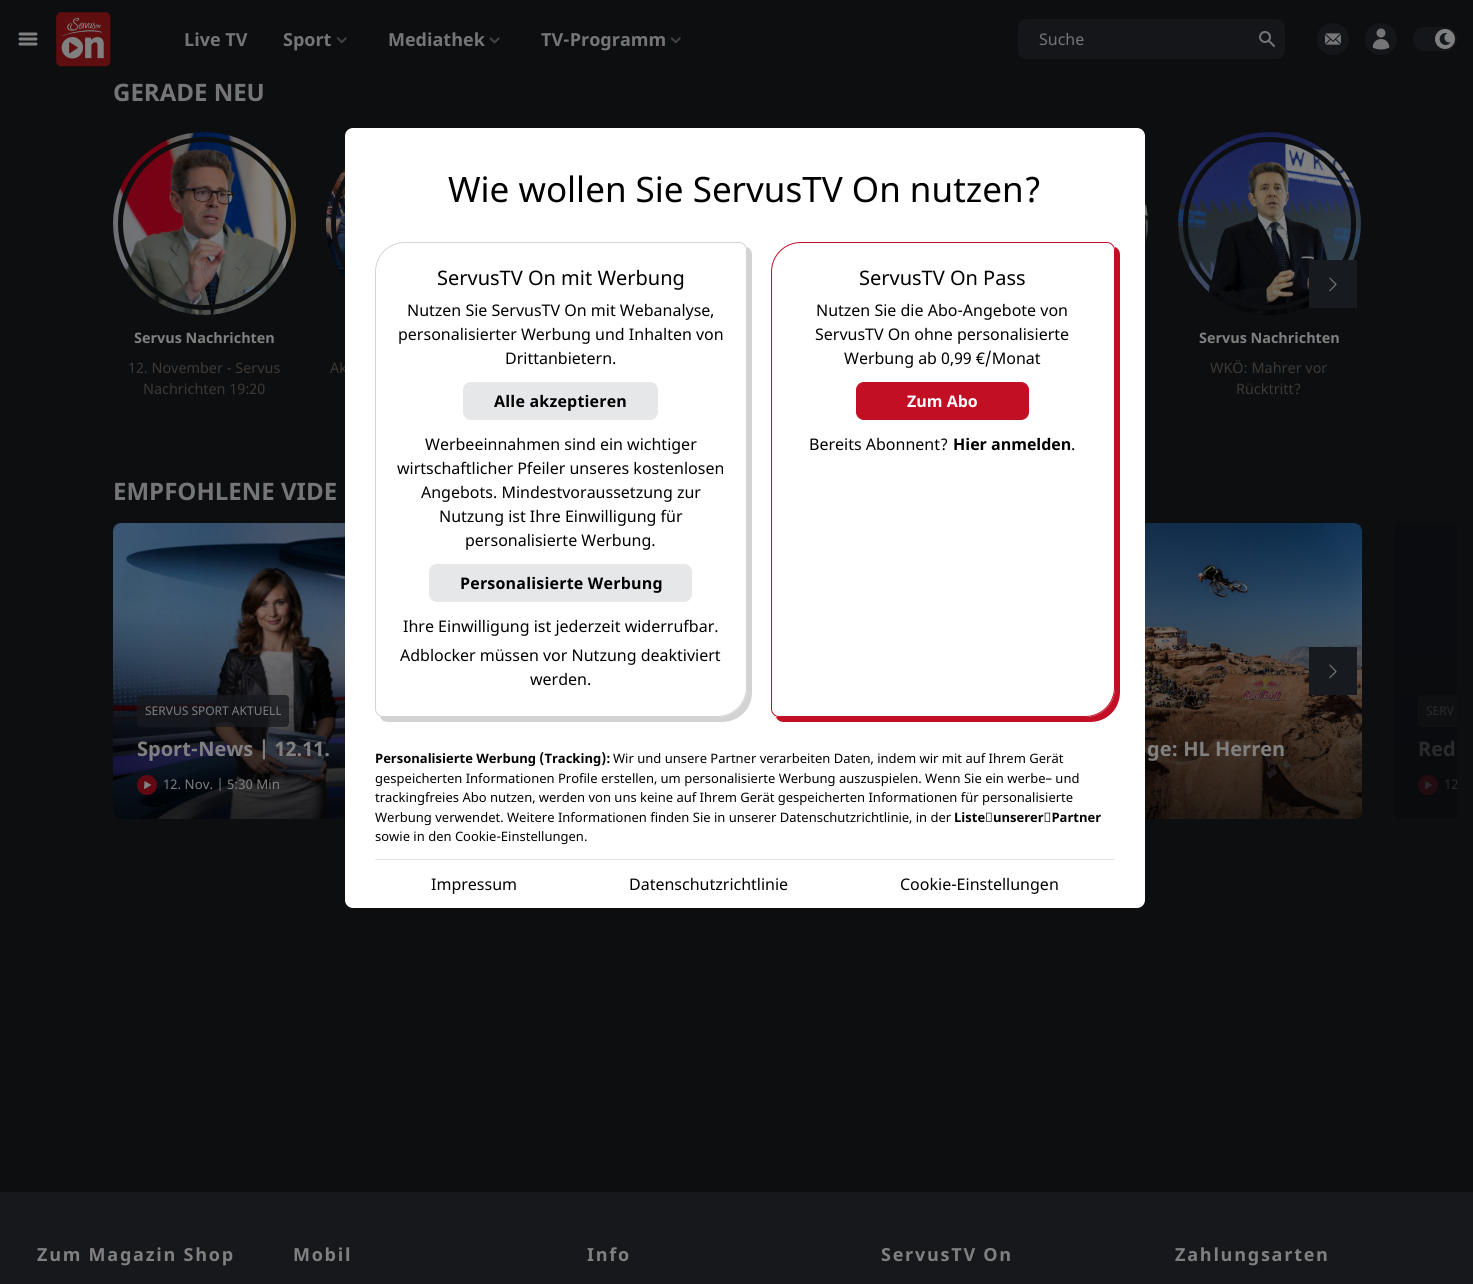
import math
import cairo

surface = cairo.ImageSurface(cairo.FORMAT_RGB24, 1473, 1284)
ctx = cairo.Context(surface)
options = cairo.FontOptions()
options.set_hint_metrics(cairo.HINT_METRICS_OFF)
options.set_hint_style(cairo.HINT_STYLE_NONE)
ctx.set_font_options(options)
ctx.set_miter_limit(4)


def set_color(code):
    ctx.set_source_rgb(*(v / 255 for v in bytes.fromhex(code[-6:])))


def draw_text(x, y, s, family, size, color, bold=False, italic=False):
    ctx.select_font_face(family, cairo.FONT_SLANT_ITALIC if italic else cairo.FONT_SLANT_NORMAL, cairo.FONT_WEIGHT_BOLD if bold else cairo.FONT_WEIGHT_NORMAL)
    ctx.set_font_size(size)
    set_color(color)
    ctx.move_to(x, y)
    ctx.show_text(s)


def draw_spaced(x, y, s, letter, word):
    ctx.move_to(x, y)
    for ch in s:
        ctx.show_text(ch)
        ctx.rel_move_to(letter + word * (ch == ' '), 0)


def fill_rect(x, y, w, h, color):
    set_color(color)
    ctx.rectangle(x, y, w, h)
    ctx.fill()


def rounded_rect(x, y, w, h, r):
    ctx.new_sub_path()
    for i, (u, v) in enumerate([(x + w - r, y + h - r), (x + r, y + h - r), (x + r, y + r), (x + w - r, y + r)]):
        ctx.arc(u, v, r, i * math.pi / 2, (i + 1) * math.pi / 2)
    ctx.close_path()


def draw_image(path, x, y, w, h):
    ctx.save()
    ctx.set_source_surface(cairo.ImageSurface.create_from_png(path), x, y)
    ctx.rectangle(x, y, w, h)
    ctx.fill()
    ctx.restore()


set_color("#0c0e10")
ctx.paint()
ctx.new_path()
ctx.move_to(20, 34)
ctx.line_to(36, 34)
ctx.move_to(20, 39)
ctx.line_to(36, 39)
ctx.move_to(20, 44)
ctx.line_to(36, 44)
set_color("#808080")
ctx.set_line_width(3)
ctx.set_line_cap(cairo.LINE_CAP_ROUND)
ctx.set_line_join(cairo.LINE_JOIN_ROUND)
ctx.stroke()
draw_image("assets/img1.png", 56, 12, 55, 55)
draw_text(184, 46, "Live TV", "Noto Sans", 18, "#757577", bold=True)
draw_text(283, 46, "Sport", "Noto Sans", 18, "#757577", bold=True)
draw_image("assets/img2.png", 336, 37, 11, 7)
draw_text(388, 46, "Mediathek", "Noto Sans", 18, "#757577", bold=True)
draw_image("assets/img3.png", 489, 37, 11, 7)
draw_text(541, 46, "TV-Programm", "Noto Sans", 18, "#757577", bold=True)
draw_image("assets/img4.png", 670, 37, 11, 7)
set_color("#14161a")
rounded_rect(1018, 19, 267, 40, 8)
ctx.fill()
draw_text(1039, 45, "Suche", "Noto Sans", 16, "#757577")
draw_image("assets/img5.png", 1259, 31, 16, 16)
set_color("#14161a")
ctx.arc(1333, 39, 16, 0, 2 * math.pi)
ctx.fill()
draw_image("assets/img6.png", 1325, 33, 16, 12)
ctx.arc(1381, 39, 16, 0, 2 * math.pi)
ctx.fill()
draw_image("assets/img7.png", 1372, 28, 18, 22)
rounded_rect(1413, 27, 44, 24, 12)
ctx.fill()
set_color("#808080")
ctx.arc(1445, 39, 10, 0, 2 * math.pi)
ctx.fill()
draw_image("assets/img8.png", 1439, 33, 12, 12)
draw_text(113, 101, "GERADE NEU", "Noto Sans", 24, "#757577", bold=True)
set_color("#07080a")
ctx.new_path()
ctx.arc(1269.5, 223.5, 91.5, 0, 2 * math.pi)
ctx.fill()
draw_image("assets/img13.png", 1178, 132, 183, 183)
ctx.arc(1269.5, 223.5, 84, 0, 2 * math.pi)
set_color("#0c0e10")
ctx.set_line_width(5)
ctx.set_line_cap(cairo.LINE_CAP_BUTT)
ctx.set_line_join(cairo.LINE_JOIN_MITER)
ctx.stroke()
fill_rect(1309, 260, 48, 48, "#171a1f")
draw_image("assets/img9.png", 1329, 277, 8, 15)
set_color("#07080a")
ctx.arc(1056.5, 223.5, 91.5, 0, 2 * math.pi)
ctx.fill()
draw_image("assets/img10.png", 1145, 201, 3, 45)
ctx.arc(204.5, 223.5, 91.5, 0, 2 * math.pi)
ctx.fill()
draw_image("assets/img11.png", 113, 132, 183, 183)
ctx.arc(204.5, 223.5, 84, 0, 2 * math.pi)
set_color("#0c0e10")
ctx.stroke()
draw_text(134, 343, "Servus Nachrichten", "Noto Sans", 14.4, "#808080", bold=True)
draw_text(128, 373, "12. November - Servus", "Noto Sans", 14.4, "#3c3936")
draw_text(143, 394, "Nachrichten 19:20", "Noto Sans", 14.4, "#3c3936")
set_color("#07080a")
ctx.new_path()
ctx.arc(417.5, 223.5, 91.5, 0, 2 * math.pi)
ctx.fill()
draw_image("assets/img12.png", 326, 168, 19, 111)
ctx.arc(417.5, 223.5, 84, 0, 2 * math.pi)
set_color("#0c0e10")
ctx.stroke()
draw_text(330, 373, "Ak", "Noto Sans", 14.4, "#3c3936")
draw_text(1199, 343, "Servus Nachrichten", "Noto Sans", 14.4, "#808080", bold=True)
draw_text(1210, 373, "WKÖ: Mahrer vor", "Noto Sans", 14.4, "#3c3936")
draw_text(1236, 394, "Rücktritt?", "Noto Sans", 14.4, "#3c3936")
draw_text(113, 500, "EMPFOHLENE VIDE", "Noto Sans", 24, "#757577", bold=True)
set_color("#07080a")
rounded_rect(967, 523, 395, 296, 8)
ctx.fill()
draw_image("assets/img15.png", 1145, 523, 217, 296)
gradient = cairo.LinearGradient(1165, 819, 1165, 523)
gradient.add_color_stop_rgba(0, 0, 0, 0, 0.7)
gradient.add_color_stop_rgba(0.1, 0, 0, 0, 0.6)
gradient.add_color_stop_rgba(0.7, 0, 0, 0, 0)
ctx.set_source(gradient)
rounded_rect(967, 523, 395, 296, 8)
ctx.fill()
fill_rect(1309, 647, 48, 48, "#171a1f")
draw_image("assets/img9.png", 1329, 664, 8, 15)
set_color("#07080a")
rounded_rect(113, 523, 395, 296, 8)
ctx.fill()
draw_image("assets/img14.png", 113, 523, 232, 296)
gradient = cairo.LinearGradient(311, 819, 311, 523)
gradient.add_color_stop_rgba(0, 0, 0, 0, 0.7)
gradient.add_color_stop_rgba(0.1, 0, 0, 0, 0.6)
gradient.add_color_stop_rgba(0.7, 0, 0, 0, 0)
ctx.set_source(gradient)
rounded_rect(113, 523, 395, 296, 8)
ctx.fill()
ctx.set_source_rgba(0.09, 0.102, 0.122, 0.75)
rounded_rect(137, 695, 152, 32, 4)
ctx.fill()
draw_text(145, 715, "SERVUS SPORT AKTUELL", "Noto Sans", 12, "#808080")
draw_text(137, 756, "Sport-News | 12.11.", "Noto Sans", 20, "#808080", bold=True)
set_color("#620813")
ctx.new_path()
ctx.arc(147, 785, 10, 0, 2 * math.pi)
ctx.fill()
set_color("#808080")
ctx.new_path()
ctx.move_to(144.5, 789)
ctx.line_to(144, 788.5)
ctx.line_to(144.5, 781)
ctx.line_to(151.5, 785)
ctx.close_path()
ctx.fill()
draw_text(163, 789, "12. Nov. | 5:30 Min", "Noto Sans", 13.25, "#808080")
draw_text(1147, 756, "ge: HL Herren", "Noto Sans", 20, "#808080", bold=True)
gradient = cairo.LinearGradient(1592, 819, 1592, 523)
gradient.add_color_stop_rgba(0, 0.039, 0.043, 0.051, 1)
gradient.add_color_stop_rgba(0.1, 0.039, 0.043, 0.051, 1)
gradient.add_color_stop_rgba(0.7, 0.043, 0.047, 0.059, 1)
ctx.set_source(gradient)
ctx.new_path()
ctx.move_to(1402, 523)
ctx.line_to(1457, 523)
ctx.line_to(1457, 819)
ctx.line_to(1402, 819)
ctx.curve_to(1397.5, 819, 1394, 815.5, 1394, 811)
ctx.line_to(1394, 531)
ctx.curve_to(1394, 526.5, 1397.5, 523, 1402, 523)
ctx.close_path()
ctx.fill()
set_color("#0e1012")
ctx.new_path()
ctx.move_to(1422, 695)
ctx.line_to(1457, 695)
ctx.line_to(1457, 727)
ctx.line_to(1422, 727)
ctx.curve_to(1420, 727, 1418, 725, 1418, 723)
ctx.line_to(1418, 699)
ctx.curve_to(1418, 697, 1420, 695, 1422, 695)
ctx.close_path()
ctx.fill()
draw_text(1426, 715, "SERV", "Noto Sans", 12, "#292a2c")
draw_text(1418, 756, "Red", "Noto Sans", 20, "#292a2c", bold=True)
set_color("#220c11")
ctx.new_path()
ctx.arc(1428, 785, 10, 0, 2 * math.pi)
ctx.fill()
set_color("#292a2c")
ctx.new_path()
ctx.move_to(1425.5, 789)
ctx.line_to(1425, 788.5)
ctx.line_to(1425.5, 781)
ctx.line_to(1432.5, 785)
ctx.close_path()
ctx.fill()
draw_text(1444, 789, "12", "Noto Sans", 13.25, "#292a2c")
fill_rect(0, 1192, 1473, 92, "#16181c")
ctx.select_font_face("Noto Sans", cairo.FONT_SLANT_NORMAL, cairo.FONT_WEIGHT_BOLD)
ctx.set_font_size(18)
set_color("#808080")
draw_spaced(37, 1261, "Zum Magazin Shop", 1.75, 0)
draw_spaced(293, 1261, "Mobil", 1.75, 0)
draw_spaced(587, 1261, "Info", 1.75, 0)
draw_spaced(881, 1261, "ServusTV On", 1.75, 0)
draw_spaced(1175, 1261, "Zahlungsarten", 1.75, 0)
set_color("#ffffff")
rounded_rect(345, 128, 800, 780, 8)
ctx.fill()
draw_text(448, 202, "Wie wollen Sie ServusTV On nutzen?", "Noto Sans", 35, "#000000")
set_color("#d3d3d3")
ctx.new_path()
ctx.move_to(380, 717)
ctx.curve_to(381, 720, 384, 722, 388, 722)
ctx.line_to(722, 722)
ctx.curve_to(739, 722, 752, 709, 752, 692)
ctx.line_to(752, 255)
ctx.curve_to(752, 251, 750, 248, 747, 247)
ctx.line_to(747, 250)
ctx.line_to(747, 687)
ctx.curve_to(747, 704, 734, 717, 717, 717)
ctx.line_to(383, 717)
ctx.close_path()
ctx.fill()
ctx.new_path()
ctx.move_to(405, 242.5)
ctx.line_to(739, 242.5)
ctx.curve_to(743, 242.5, 746.5, 246, 746.5, 250)
ctx.line_to(746.5, 687)
ctx.curve_to(746.5, 703.5, 733.5, 716.5, 717, 716.5)
ctx.line_to(383, 716.5)
ctx.curve_to(379, 716.5, 375.5, 713, 375.5, 709)
ctx.line_to(375.5, 272)
ctx.curve_to(375.5, 255.5, 388.5, 242.5, 405, 242.5)
ctx.close_path()
ctx.set_line_width(1)
ctx.stroke()
draw_text(437, 285, "ServusTV On mit Werbung", "Noto Sans", 20, "#000000")
draw_text(407, 316, "Nutzen Sie ServusTV On mit Webanalyse,", "Noto Sans", 16, "#000000")
draw_text(398, 340, "personalisierter Werbung und Inhalten von", "Noto Sans", 16, "#000000")
draw_text(505, 364, "Drittanbietern.", "Noto Sans", 16, "#000000")
set_color("#e6e7e9")
rounded_rect(463, 382, 195, 38, 8)
ctx.fill()
ctx.select_font_face("Noto Sans", cairo.FONT_SLANT_NORMAL, cairo.FONT_WEIGHT_BOLD)
set_color("#000000")
draw_spaced(494, 407, "Alle akzeptieren", 0.2, 0)
draw_text(425, 450, "Werbeeinnahmen sind ein wichtiger", "Noto Sans", 16, "#000000")
draw_text(397, 474, "wirtschaftlicher Pfeiler unseres kostenlosen", "Noto Sans", 16, "#000000")
draw_text(421, 498, "Angebots. Mindestvoraussetzung zur", "Noto Sans", 16, "#000000")
draw_text(439, 522, "Nutzung ist Ihre Einwilligung für", "Noto Sans", 16, "#000000")
draw_text(465, 546, "personalisierte Werbung.", "Noto Sans", 16, "#000000")
set_color("#e6e7e9")
rounded_rect(429, 564, 263, 38, 8)
ctx.fill()
ctx.select_font_face("Noto Sans", cairo.FONT_SLANT_NORMAL, cairo.FONT_WEIGHT_BOLD)
set_color("#000000")
draw_spaced(460, 589, "Personalisierte Werbung", 0.2, 0)
draw_text(403, 632, "Ihre Einwilligung ist jederzeit widerrufbar.", "Noto Sans", 16, "#000000")
draw_text(400, 661, "Adblocker müssen vor Nutzung deaktiviert", "Noto Sans", 16, "#000000")
draw_text(530, 685, "werden.", "Noto Sans", 16, "#000000")
set_color("#c30f25")
ctx.new_path()
ctx.move_to(776, 717)
ctx.curve_to(777, 720, 780, 722, 784, 722)
ctx.line_to(1090, 722)
ctx.curve_to(1107, 722, 1120, 709, 1120, 692)
ctx.line_to(1120, 255)
ctx.curve_to(1120, 251, 1118, 248, 1115, 247)
ctx.line_to(1115, 250)
ctx.line_to(1115, 687)
ctx.curve_to(1115, 704, 1102, 717, 1085, 717)
ctx.line_to(779, 717)
ctx.close_path()
ctx.fill()
ctx.new_path()
ctx.move_to(801, 242.5)
ctx.line_to(1107, 242.5)
ctx.curve_to(1111, 242.5, 1114.5, 246, 1114.5, 250)
ctx.line_to(1114.5, 687)
ctx.curve_to(1114.5, 703.5, 1101.5, 716.5, 1085, 716.5)
ctx.line_to(779, 716.5)
ctx.curve_to(775, 716.5, 771.5, 713, 771.5, 709)
ctx.line_to(771.5, 272)
ctx.curve_to(771.5, 255.5, 784.5, 242.5, 801, 242.5)
ctx.close_path()
ctx.stroke()
draw_text(859, 285, "ServusTV On Pass", "Noto Sans", 20, "#000000")
draw_text(816, 316, "Nutzen Sie die Abo-Angebote von", "Noto Sans", 16, "#000000")
draw_text(815, 340, "ServusTV On ohne personalisierte", "Noto Sans", 16, "#000000")
draw_text(844, 364, "Werbung ab 0,99 €/Monat", "Noto Sans", 16, "#000000")
set_color("#c30f24")
rounded_rect(856.5, 382.5, 172, 37, 7.5)
ctx.fill_preserve()
ctx.stroke()
draw_text(907, 407, "Zum Abo", "Noto Sans", 16, "#ffffff", bold=True)
draw_text(809, 450, "Bereits Abonnent?", "Noto Sans", 16, "#000000")
draw_text(953, 450, "Hier anmelden", "Noto Sans", 16, "#000000", bold=True)
draw_text(1071, 450, ".", "Noto Sans", 16, "#000000")
draw_text(375, 763, "Personalisierte Werbung (Tracking):", "Noto Sans", 13, "#000000", bold=True)
draw_text(613, 763, "Wir und unsere Partner verarbeiten Daten, indem wir mit auf Ihrem Gerät", "Noto Sans", 13, "#000000")
draw_text(375, 783, "gespeicherten Informationen Profile erstellen, um personalisierte Werbung auszuspielen. Wenn Sie ein werbe– und", "Noto Sans", 13, "#000000")
draw_text(375, 802, "trackingfreies Abo nutzen, werden von uns keine auf Ihrem Gerät gespeicherten Informationen für personalisierte", "Noto Sans", 13, "#000000")
draw_text(375, 822, "Werbung verwendet. Weitere Informationen finden Sie in unserer Datenschutzrichtlinie, in der", "Noto Sans", 13, "#000000")
draw_text(954, 822, "Liste unserer Partner", "Noto Sans", 13, "#000000", bold=True)
draw_text(375, 841, "sowie in den Cookie-Einstellungen.", "Noto Sans", 13, "#000000")
fill_rect(375, 859, 740, 1, "#e5e5e5")
draw_text(431, 890, "Impressum", "Noto Sans", 16, "#000000")
draw_text(629, 890, "Datenschutzrichtlinie", "Noto Sans", 16, "#000000")
draw_text(900, 890, "Cookie-Einstellungen", "Noto Sans", 16, "#000000")
surface.write_to_png("output.png")
